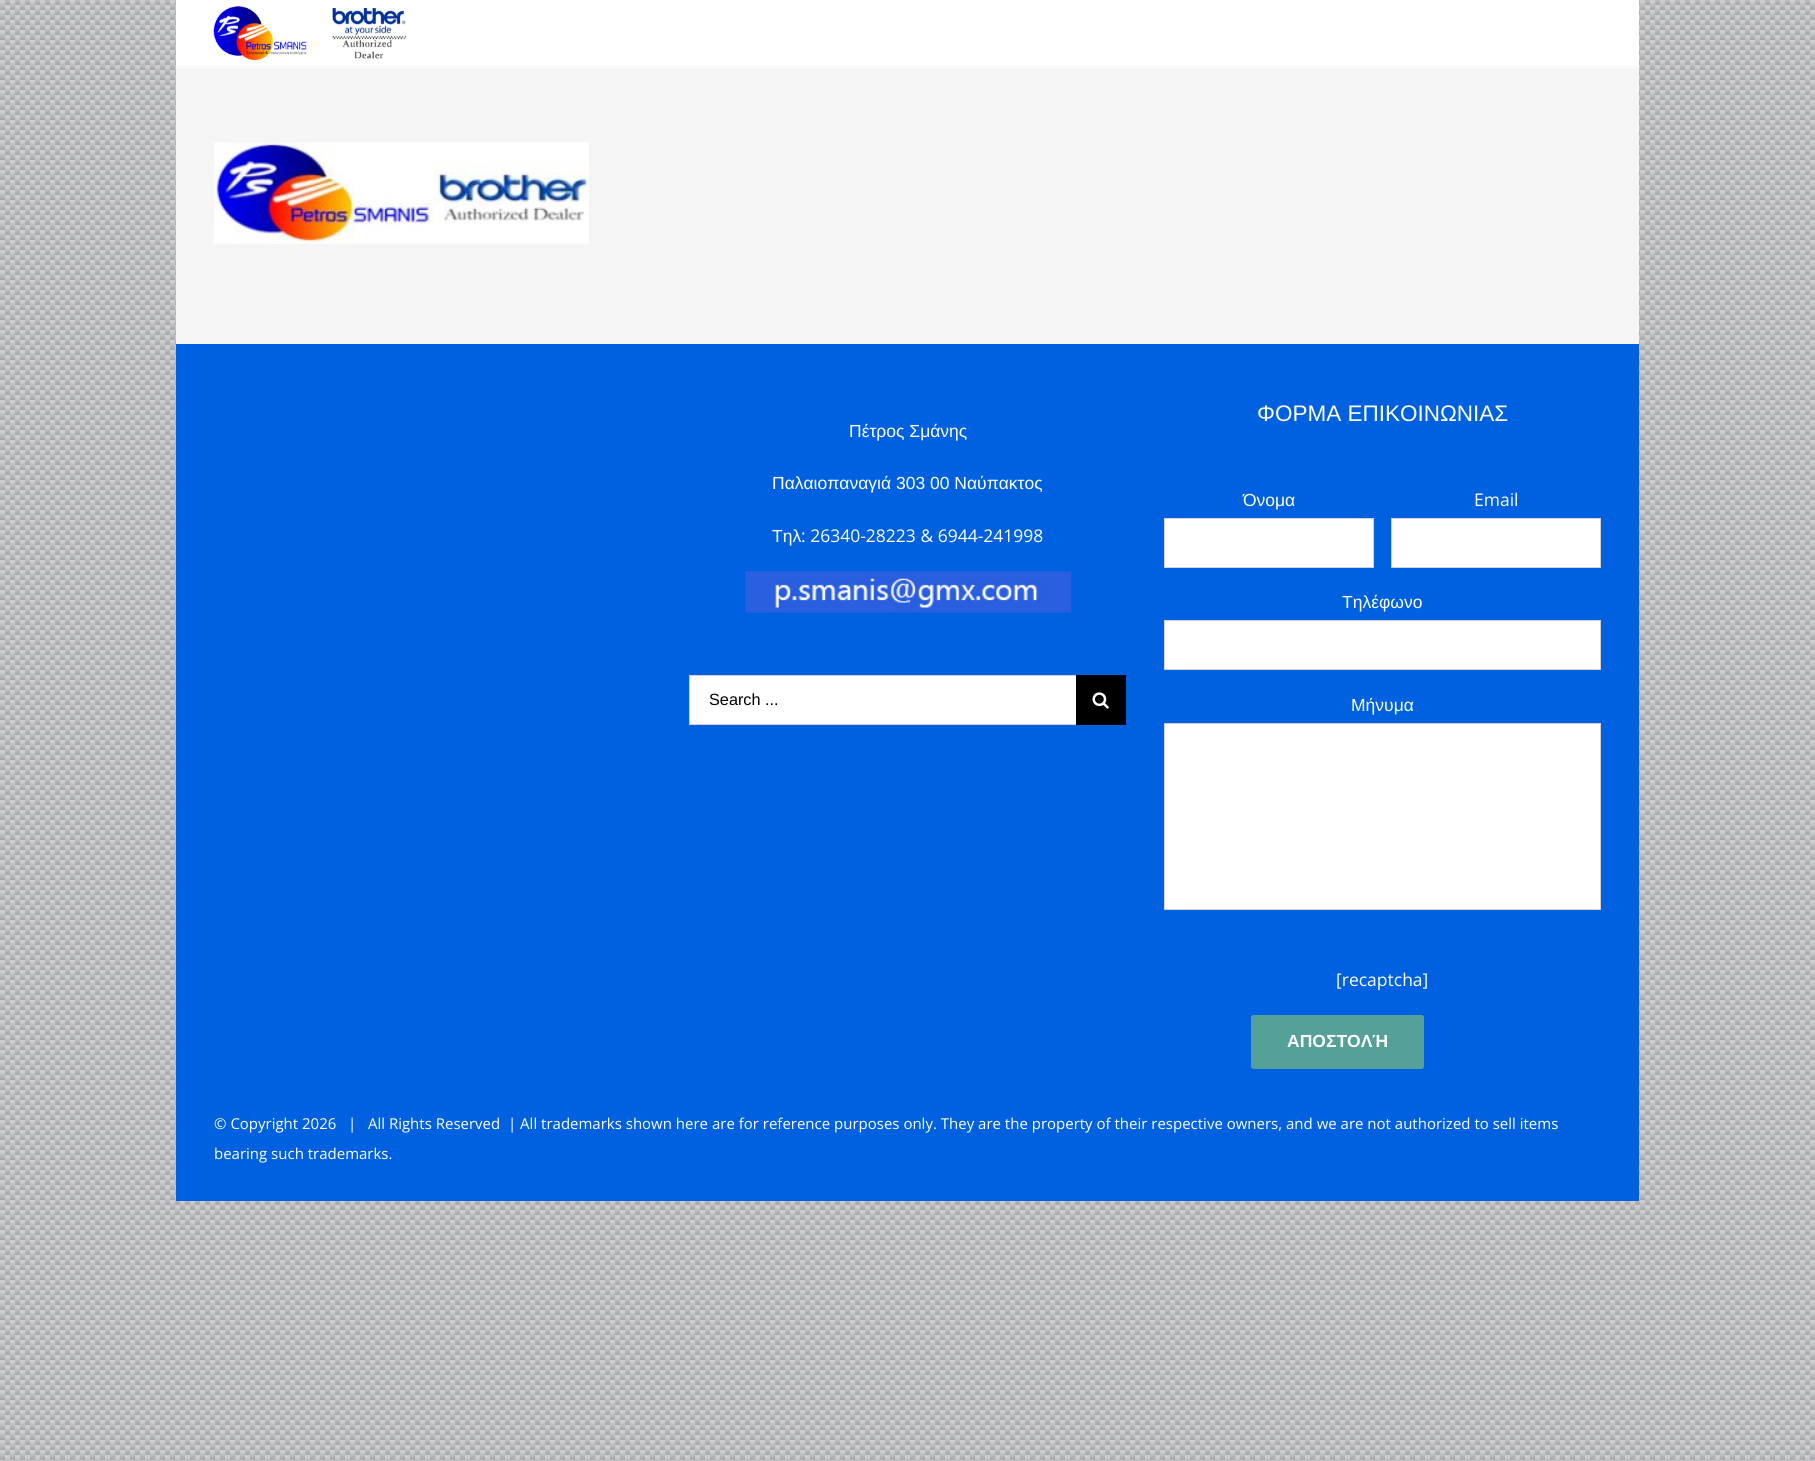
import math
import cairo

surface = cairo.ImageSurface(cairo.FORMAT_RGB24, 1815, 1461)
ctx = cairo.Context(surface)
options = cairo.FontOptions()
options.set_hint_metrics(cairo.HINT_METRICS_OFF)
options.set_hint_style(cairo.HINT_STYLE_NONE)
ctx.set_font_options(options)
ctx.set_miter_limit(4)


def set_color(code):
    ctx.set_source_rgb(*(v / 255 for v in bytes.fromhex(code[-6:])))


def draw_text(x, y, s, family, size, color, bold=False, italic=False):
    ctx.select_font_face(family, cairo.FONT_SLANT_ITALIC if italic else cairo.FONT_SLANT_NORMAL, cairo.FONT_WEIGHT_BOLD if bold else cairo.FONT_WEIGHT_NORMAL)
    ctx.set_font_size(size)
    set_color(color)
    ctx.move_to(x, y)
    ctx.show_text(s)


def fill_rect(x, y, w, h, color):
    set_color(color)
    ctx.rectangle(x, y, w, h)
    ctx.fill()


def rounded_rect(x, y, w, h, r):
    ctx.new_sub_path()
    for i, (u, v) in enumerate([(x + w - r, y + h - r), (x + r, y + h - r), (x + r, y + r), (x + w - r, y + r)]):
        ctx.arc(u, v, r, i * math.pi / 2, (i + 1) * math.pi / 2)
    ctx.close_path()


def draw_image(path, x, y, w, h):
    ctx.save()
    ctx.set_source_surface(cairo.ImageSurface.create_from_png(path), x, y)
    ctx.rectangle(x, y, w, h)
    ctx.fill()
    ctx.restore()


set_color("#ffffff")
ctx.paint()
draw_image("assets/img1.png", 0, 1201, 1815, 260)
draw_image("assets/img2.png", 0, 0, 1815, 1201)
fill_rect(176, 0, 1463, 68, "#ffffff")
fill_rect(176, 66, 1463, 1, "#f5f5f5")
draw_image("assets/img3.png", 213, 6, 194, 54)
fill_rect(176, 68, 1463, 276, "#f5f5f5")
draw_image("assets/img4.png", 214, 142, 375, 102)
fill_rect(176, 344, 1463, 857, "#0061e0")
draw_text(849, 437, "Πέτρος Σμάνης", "Liberation Sans", 17.5, "#ffffff")
draw_text(772, 489, "Παλαιοπαναγιά 303 00 Ναύπακτος", "Liberation Sans", 17.5, "#ffffff")
draw_text(772, 542, "Τηλ", "Liberation Sans", 17.5, "#ffffff")
draw_text(801, 542, ": 26340-28223 & 6944-241998", "Open Sans", 17.5, "#ffffff")
draw_image("assets/img5.png", 745, 571, 327, 42)
fill_rect(690, 676, 386, 48, "#ffffff")
fill_rect(689, 675, 387, 1, "#d2d2d2")
fill_rect(689, 724, 387, 1, "#d2d2d2")
fill_rect(689, 675, 1, 50, "#d2d2d2")
draw_text(709, 705, "Search ...", "Liberation Sans", 16.25, "#000000")
fill_rect(1076, 675, 50, 50, "#000000")
draw_image("assets/img6.png", 1092, 692, 17, 17)
draw_text(1257, 421, "ΦΟΡΜΑ ΕΠΙΚΟΙΝΩΝΙΑΣ", "Liberation Sans", 22.5, "#ffffff")
draw_text(1243, 506, "Όνομα", "Liberation Sans", 17.5, "#ffffff")
ctx.rectangle(1164.5, 518.5, 209, 49)
ctx.fill_preserve()
set_color("#d2d2d2")
ctx.set_line_width(1)
ctx.stroke()
draw_text(1474, 506, "Email", "Open Sans", 17.5, "#ffffff")
ctx.rectangle(1391.5, 518.5, 209, 49)
ctx.fill_preserve()
set_color("#d2d2d2")
ctx.stroke()
draw_text(1342, 608, "Τηλέφωνο", "Liberation Sans", 17.5, "#ffffff")
ctx.rectangle(1164.5, 620.5, 436, 49)
ctx.fill_preserve()
set_color("#d2d2d2")
ctx.stroke()
draw_text(1351, 711, "Μήνυμα", "Liberation Sans", 17.5, "#ffffff")
ctx.rectangle(1164.5, 723.5, 436, 186)
ctx.fill_preserve()
set_color("#d2d2d2")
ctx.stroke()
draw_text(1336, 986, "[recaptcha]", "Open Sans", 17.5, "#ffffff")
set_color("#55a098")
rounded_rect(1251, 1015, 173, 54, 2.5)
ctx.fill()
draw_text(1287, 1047, "ΑΠΟΣΤΟΛΉ", "Liberation Sans", 17.5, "#ffffff", bold=True)
draw_text(214, 1129, "© Copyright 2026   |   All Rights Reserved  | All trademarks shown here are for reference purposes only. They are the property of their respective owners, and we are not authorized to sell items", "Open Sans", 15, "#ffffff")
draw_text(214, 1159, "bearing such trademarks.", "Open Sans", 15, "#ffffff")
surface.write_to_png("output.png")
